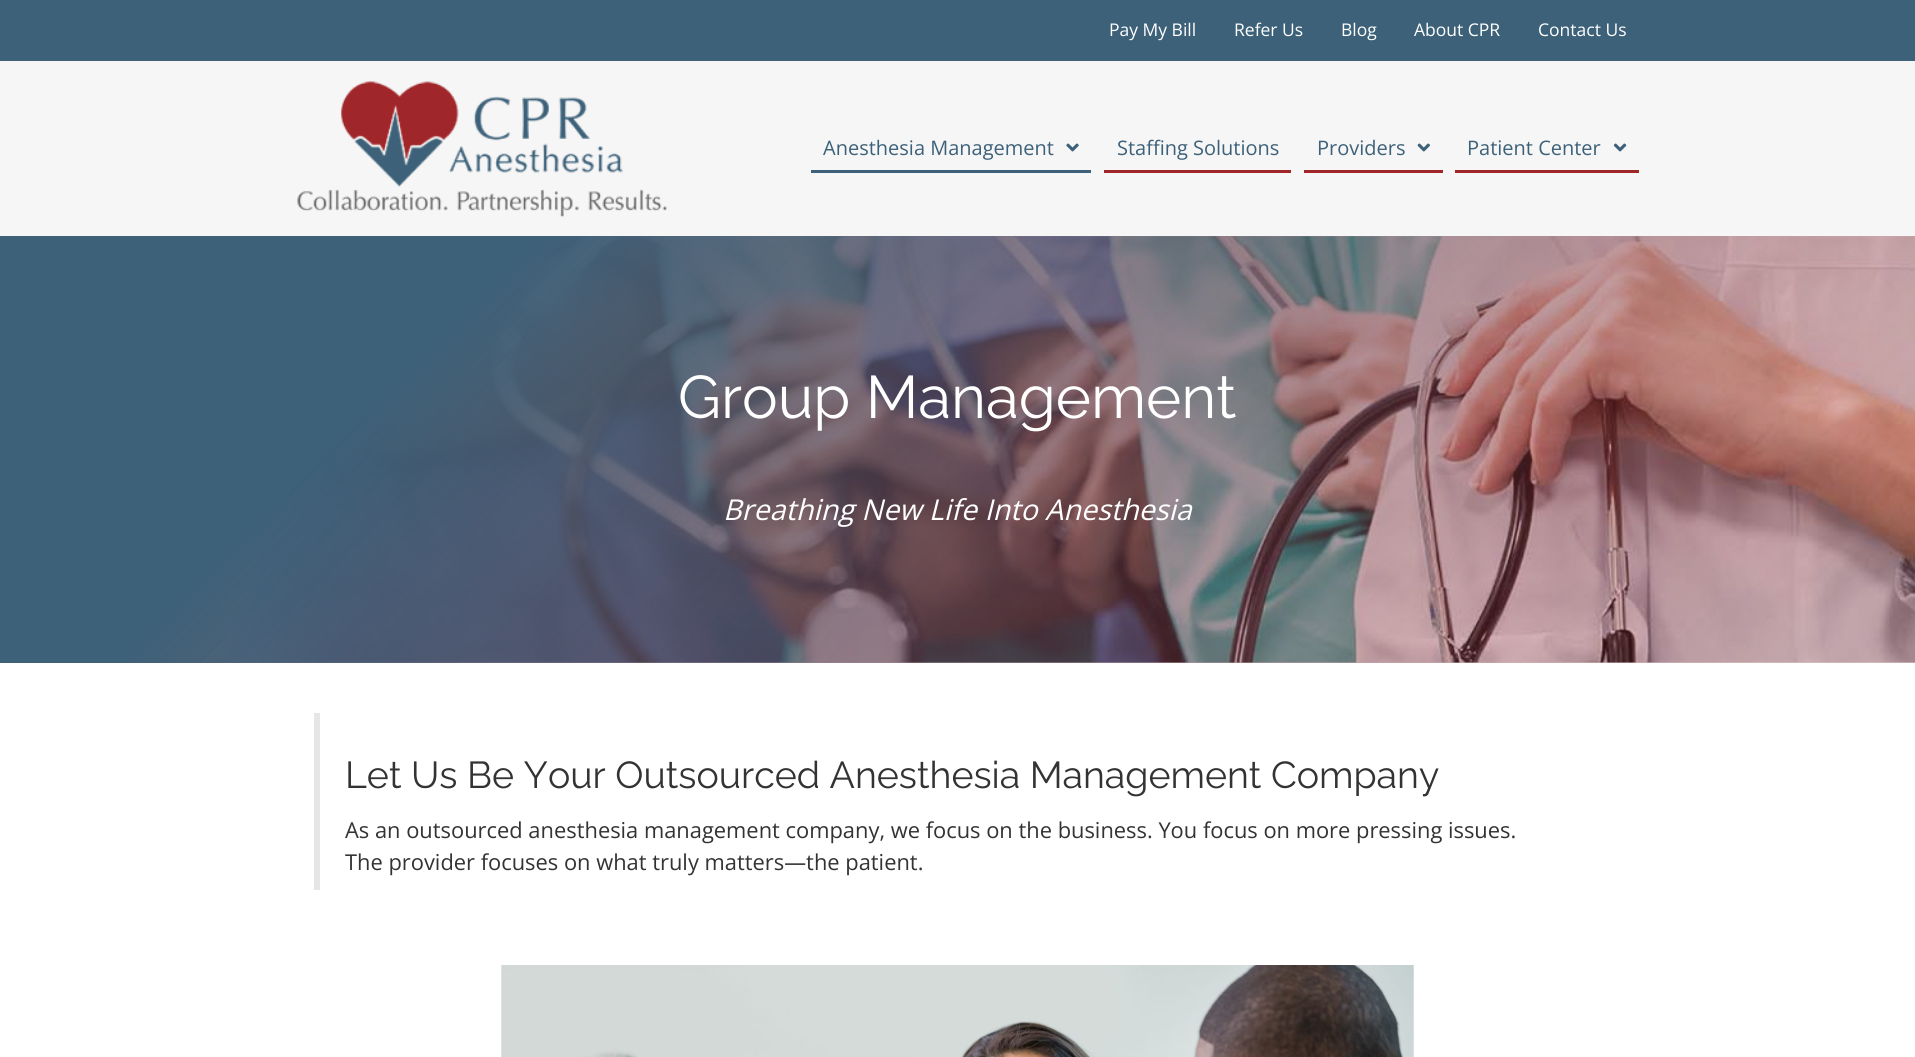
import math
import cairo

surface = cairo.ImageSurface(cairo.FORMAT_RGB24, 1915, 1057)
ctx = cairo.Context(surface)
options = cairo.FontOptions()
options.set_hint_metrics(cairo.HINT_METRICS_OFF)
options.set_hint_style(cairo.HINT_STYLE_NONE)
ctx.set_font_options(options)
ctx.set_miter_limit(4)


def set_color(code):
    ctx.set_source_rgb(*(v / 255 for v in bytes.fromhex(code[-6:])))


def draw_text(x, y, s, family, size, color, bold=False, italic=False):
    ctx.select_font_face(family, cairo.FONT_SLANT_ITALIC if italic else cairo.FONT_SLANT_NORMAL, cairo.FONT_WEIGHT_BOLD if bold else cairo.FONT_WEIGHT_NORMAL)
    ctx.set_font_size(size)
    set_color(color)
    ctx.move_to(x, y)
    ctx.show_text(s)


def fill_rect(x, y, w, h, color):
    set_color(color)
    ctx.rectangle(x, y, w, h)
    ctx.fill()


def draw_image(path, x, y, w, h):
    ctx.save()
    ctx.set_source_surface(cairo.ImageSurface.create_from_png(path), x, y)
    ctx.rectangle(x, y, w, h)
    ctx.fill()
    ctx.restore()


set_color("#f6f6f6")
ctx.paint()
fill_rect(0, 0, 1915, 61, "#3d6179")
draw_text(1109, 36, "Pay My Bill", "Open Sans", 17.5, "#ffffff")
draw_text(1234, 36, "Refer Us", "Open Sans", 17.5, "#ffffff")
draw_text(1341, 36, "Blog", "Open Sans", 17.5, "#ffffff")
draw_text(1414, 36, "About CPR", "Open Sans", 17.5, "#ffffff")
draw_text(1538, 36, "Contact Us", "Open Sans", 17.5, "#ffffff")
draw_image("assets/img1.png", 297, 81, 370, 136)
fill_rect(811, 170, 280, 3, "#3d6179")
draw_text(823, 155, "Anesthesia Management", "Open Sans", 20, "#3d6179")
draw_image("assets/img2.png", 1066, 143, 13, 9)
fill_rect(1104, 170, 187, 3, "#a0262a")
draw_text(1117, 155, "Staffing Solutions", "Open Sans", 20, "#3d6179")
fill_rect(1304, 170, 139, 3, "#a0262a")
draw_text(1317, 155, "Providers", "Open Sans", 20, "#3d6179")
draw_image("assets/img3.png", 1417, 143, 13, 9)
fill_rect(1455, 170, 184, 3, "#a0262a")
draw_text(1467, 155, "Patient Center", "Open Sans", 20, "#3d6179")
draw_image("assets/img4.png", 1613, 143, 14, 9)
draw_image("assets/img5.png", 125, 236, 1790, 427)
gradient = cairo.LinearGradient(372, -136, 1543, 1035)
gradient.add_color_stop_rgba(0.23, 0.239, 0.38, 0.475, 1)
gradient.add_color_stop_rgba(0.94, 0.627, 0.149, 0.165, 0.23)
ctx.set_source(gradient)
ctx.rectangle(0, 236, 1915, 427)
ctx.fill()
draw_text(678, 418, "Group Management", "Raleway", 60, "#ffffff")
draw_text(723, 520, "Breathing New Life Into Anesthesia", "Open Sans", 28.75, "#ffffff", italic=True)
fill_rect(0, 663, 1915, 394, "#ffffff")
fill_rect(314, 713, 6, 177, "#e6e6e6")
draw_text(345, 788, "Let Us Be Your Outsourced Anesthesia Management Company", "Raleway", 37.5, "#333333")
draw_text(345, 838, "As an outsourced anesthesia management company, we focus on the business. You focus on more pressing issues.", "Open Sans", 21.88, "#333333")
draw_text(345, 870, "The provider focuses on what truly matters—the patient.", "Open Sans", 21.88, "#333333")
draw_image("assets/img6.png", 501, 965, 913, 92)
surface.write_to_png("output.png")
